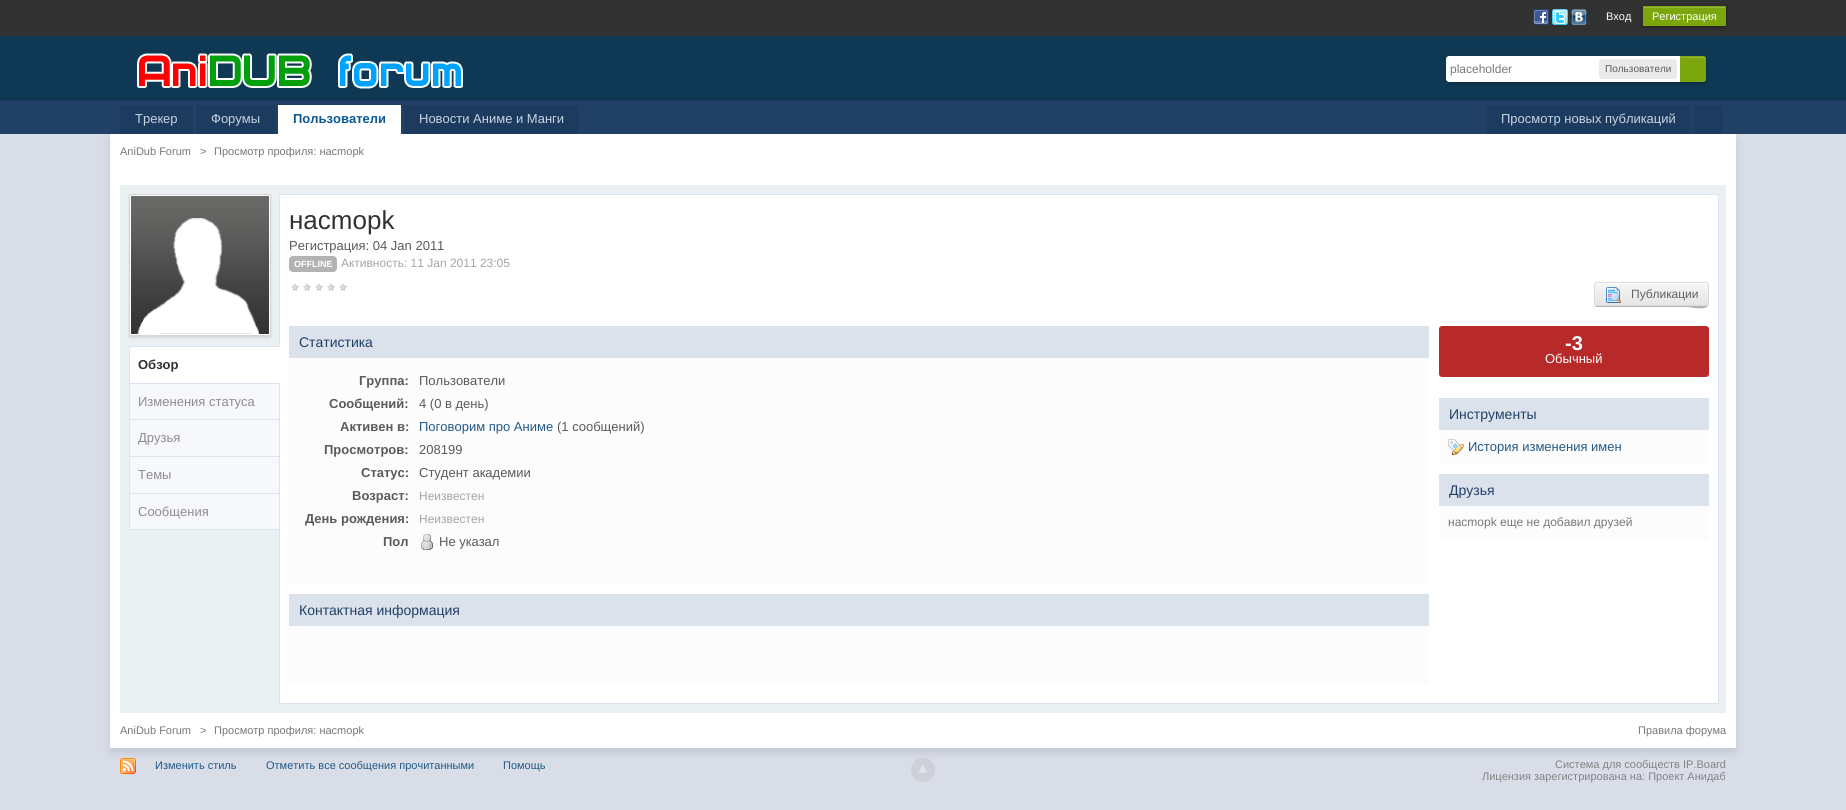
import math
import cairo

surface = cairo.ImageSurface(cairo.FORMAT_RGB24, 1846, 810)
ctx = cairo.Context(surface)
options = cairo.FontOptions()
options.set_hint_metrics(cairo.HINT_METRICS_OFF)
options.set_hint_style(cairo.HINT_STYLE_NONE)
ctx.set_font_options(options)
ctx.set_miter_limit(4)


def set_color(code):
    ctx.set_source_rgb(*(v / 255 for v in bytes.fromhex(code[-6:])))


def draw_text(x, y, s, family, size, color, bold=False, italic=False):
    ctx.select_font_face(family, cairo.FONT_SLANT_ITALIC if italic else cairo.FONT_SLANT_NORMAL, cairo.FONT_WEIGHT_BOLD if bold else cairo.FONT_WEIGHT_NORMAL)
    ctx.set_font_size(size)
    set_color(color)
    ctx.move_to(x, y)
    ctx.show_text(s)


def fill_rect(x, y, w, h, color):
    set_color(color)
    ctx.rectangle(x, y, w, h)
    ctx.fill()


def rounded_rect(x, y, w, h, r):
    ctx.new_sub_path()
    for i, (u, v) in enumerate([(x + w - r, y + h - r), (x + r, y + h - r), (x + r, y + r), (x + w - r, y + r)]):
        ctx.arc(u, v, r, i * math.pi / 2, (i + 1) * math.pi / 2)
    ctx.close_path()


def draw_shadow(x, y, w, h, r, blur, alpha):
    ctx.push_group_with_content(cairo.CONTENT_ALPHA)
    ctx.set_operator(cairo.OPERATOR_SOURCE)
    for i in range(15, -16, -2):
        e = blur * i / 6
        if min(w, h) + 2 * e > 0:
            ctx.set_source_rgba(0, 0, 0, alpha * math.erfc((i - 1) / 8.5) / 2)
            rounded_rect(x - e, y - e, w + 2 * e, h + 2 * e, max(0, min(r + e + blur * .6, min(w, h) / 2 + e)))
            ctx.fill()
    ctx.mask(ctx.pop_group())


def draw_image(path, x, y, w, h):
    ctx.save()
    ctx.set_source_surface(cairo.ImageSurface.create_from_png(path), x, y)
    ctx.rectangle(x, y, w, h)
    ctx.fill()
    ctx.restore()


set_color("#d8dde8")
ctx.paint()
fill_rect(0, 0, 1846, 36, "#323232")
draw_image("assets/img1.png", 1533, 9, 16, 16)
draw_image("assets/img2.png", 1552, 9, 16, 16)
draw_image("assets/img3.png", 1571, 9, 16, 16)
draw_text(1606, 20, "Вход", "Liberation Sans", 11, "#ffffff")
set_color("#000000")
draw_shadow(1643, 7, 83, 20, 0, 2, 0.4)
fill_rect(1643, 6, 83, 20, "#7ba60d")
fill_rect(1644, 7, 81, 1, "#95b83d")
draw_text(1652, 20, "Регистрация", "Liberation Sans", 11, "#ffffff")
fill_rect(0, 36, 1846, 64, "#0f3854")
fill_rect(0, 100, 1846, 1, "#1b3759")
draw_image("assets/img4.png", 137, 53, 326, 36)
set_color("#000000")
draw_shadow(1446, 58, 260, 26, 4, 2, 0.2)
set_color("#ffffff")
ctx.new_path()
ctx.move_to(1449, 56)
ctx.line_to(1702, 56)
ctx.curve_to(1704, 56, 1706, 58, 1706, 60)
ctx.line_to(1706, 78)
ctx.curve_to(1706, 80, 1704, 82, 1702, 82)
ctx.line_to(1449, 82)
ctx.curve_to(1447.5, 82, 1446, 80.5, 1446, 79)
ctx.line_to(1446, 59)
ctx.curve_to(1446, 57.5, 1447.5, 56, 1449, 56)
ctx.close_path()
ctx.fill()
draw_text(1450, 73, "placeholder", "Liberation Sans", 12, "#777777")
set_color("#eaeaea")
rounded_rect(1599, 59, 78, 20, 3)
ctx.fill()
draw_text(1605, 72, "Пользователи", "Liberation Sans", 10, "#5a5a5a")
set_color("#7ba60d")
ctx.new_path()
ctx.move_to(1680, 56)
ctx.line_to(1703, 56)
ctx.curve_to(1704.5, 56, 1706, 57.5, 1706, 59)
ctx.line_to(1706, 79)
ctx.curve_to(1706, 80.5, 1704.5, 82, 1703, 82)
ctx.line_to(1680, 82)
ctx.close_path()
ctx.fill()
set_color("#95b83d")
ctx.new_path()
ctx.move_to(1681, 58)
ctx.line_to(1703, 58)
ctx.curve_to(1704, 58, 1705, 59, 1705, 60)
ctx.line_to(1705, 59)
ctx.curve_to(1705, 58, 1704, 57, 1703, 57)
ctx.line_to(1681, 57)
ctx.close_path()
ctx.fill()
ctx.new_path()
ctx.move_to(1680.5, 56.5)
ctx.line_to(1703, 56.5)
ctx.curve_to(1704.5, 56.5, 1705.5, 57.5, 1705.5, 59)
ctx.line_to(1705.5, 79)
ctx.curve_to(1705.5, 80.5, 1704.5, 81.5, 1703, 81.5)
ctx.line_to(1680.5, 81.5)
ctx.close_path()
set_color("#7ba60d")
ctx.set_line_width(1)
ctx.stroke()
fill_rect(0, 101, 1846, 33, "#204066")
set_color("#000000")
draw_shadow(110, 139, 1626, 614, 0, 4.5, 0.1)
fill_rect(120, 105, 73, 29, "#1c3b5f")
draw_text(135, 123, "Трекер", "Liberation Sans", 13, "#c5d5e2")
fill_rect(196, 105, 79, 29, "#1c3b5f")
draw_text(211, 123, "Форумы", "Liberation Sans", 13, "#c5d5e2")
fill_rect(278, 105, 123, 29, "#ffffff")
draw_text(293, 123, "Пользователи", "Liberation Sans", 13, "#0b5794", bold=True)
fill_rect(404, 105, 175, 29, "#1c3b5f")
draw_text(419, 123, "Новости Аниме и Манги", "Liberation Sans", 13, "#c5d5e2")
fill_rect(1486, 105, 205, 29, "#1c3b5f")
draw_text(1501, 123, "Просмотр новых публикаций", "Liberation Sans", 13, "#c5d5e2")
fill_rect(1694, 105, 29, 29, "#1c3b5f")
fill_rect(110, 134, 1626, 614, "#ffffff")
draw_text(120, 155, "AniDub Forum", "Liberation Sans", 11, "#777777")
draw_text(200, 155, ">", "Liberation Sans", 11, "#777777")
draw_text(214, 155, "Просмотр профиля: нacmopk", "Liberation Sans", 11, "#777777")
fill_rect(120, 185, 1606, 528, "#ebf0f3")
set_color("#000000")
draw_shadow(129, 196, 142, 142, 0, 1, 0.1)
set_color("#ffffff")
ctx.rectangle(129.5, 194.5, 141, 141)
ctx.fill_preserve()
set_color("#d5d5d5")
ctx.stroke()
draw_image("assets/img5.png", 131, 196, 138, 138)
fill_rect(129, 346, 150, 1, "#dbe4ef")
fill_rect(129, 346, 1, 184, "#dbe4ef")
fill_rect(130, 383, 149, 1, "#dbe4ef")
set_color("#ffffff")
ctx.rectangle(279.5, 194.5, 1439, 509)
ctx.fill_preserve()
set_color("#dbe4ef")
ctx.stroke()
fill_rect(130, 347, 150, 36, "#ffffff")
draw_text(138, 369, "Обзор", "Liberation Sans", 13, "#323232", bold=True)
fill_rect(130, 384, 149, 35, "#f6f8fb")
fill_rect(130, 419, 149, 1, "#dbe4ef")
draw_text(138, 406, "Изменения статуса", "Liberation Sans", 13, "#8d8d8d")
fill_rect(130, 420, 149, 36, "#f6f8fb")
fill_rect(130, 456, 149, 1, "#dbe4ef")
draw_text(138, 442, "Друзья", "Liberation Sans", 13, "#8d8d8d")
fill_rect(130, 457, 149, 36, "#f6f8fb")
fill_rect(130, 493, 149, 1, "#dbe4ef")
draw_text(138, 479, "Темы", "Liberation Sans", 13, "#8d8d8d")
fill_rect(130, 494, 149, 35, "#f6f8fb")
fill_rect(130, 529, 149, 1, "#dbe4ef")
draw_text(138, 516, "Сообщения", "Liberation Sans", 13, "#8d8d8d")
draw_text(289, 229, "нacmopk", "Liberation Sans", 26, "#323232")
draw_text(289, 250, "Регистрация: 04 Jan 2011", "Liberation Sans", 13, "#5a5a5a")
set_color("#b3b3b3")
rounded_rect(289, 256, 48, 16, 4)
ctx.fill()
draw_text(294, 267, "OFFLINE", "Liberation Sans", 9, "#ffffff", bold=True)
draw_text(341, 267, "Активность: 11 Jan 2011 23:05", "Liberation Sans", 12, "#a4a4a4")
draw_image("assets/img6.png", 291, 283, 8, 8)
draw_image("assets/img6.png", 303, 283, 8, 8)
draw_image("assets/img6.png", 315, 283, 8, 8)
draw_image("assets/img6.png", 327, 283, 8, 8)
draw_image("assets/img6.png", 339, 283, 8, 8)
set_color("#b3b3b3")
ctx.new_path()
ctx.move_to(1594, 303)
ctx.curve_to(1594, 305, 1595, 307, 1597, 307)
ctx.line_to(1688, 307)
ctx.curve_to(1689, 307, 1709, 312, 1709, 303)
ctx.line_to(1708, 305)
ctx.line_to(1706, 306)
ctx.line_to(1597, 306)
ctx.curve_to(1595, 306, 1594, 305, 1594, 303)
ctx.close_path()
ctx.fill()
ctx.save()
rounded_rect(1594, 282, 115, 24, 3)
ctx.clip()
gradient = cairo.LinearGradient(1595, 283, 1595, 305)
gradient.add_color_stop_rgba(0, 0.965, 0.965, 0.965, 1)
gradient.add_color_stop_rgba(1, 0.898, 0.898, 0.898, 1)
ctx.set_source(gradient)
ctx.rectangle(1594, 283, 115, 22)
ctx.fill()
ctx.restore()
set_color("#ffffff")
ctx.new_path()
ctx.move_to(1597, 284)
ctx.line_to(1706, 284)
ctx.curve_to(1707, 284, 1708, 285, 1708, 286)
ctx.curve_to(1708, 285, 1708, 283, 1706, 283)
ctx.line_to(1615, 283)
ctx.curve_to(1609, 283, 1595, 279, 1595, 286)
ctx.curve_to(1595, 285, 1596, 284, 1597, 284)
ctx.close_path()
ctx.fill()
rounded_rect(1594.5, 282.5, 114, 23, 2.5)
set_color("#dbdbdb")
ctx.stroke()
draw_image("assets/img7.png", 1606, 287, 15, 16)
draw_text(1631, 298, "Публикации", "Liberation Sans", 12, "#616161")
fill_rect(289, 358, 1140, 226, "#fcfcfc")
fill_rect(289, 326, 1140, 32, "#dbe2ec")
draw_text(299, 347, "Статистика", "Liberation Sans", 14, "#204066")
draw_text(359, 385, "Группа:", "Liberation Sans", 13, "#5a5a5a", bold=True)
draw_text(419, 385, "Пользователи", "Liberation Sans", 13, "#5a5a5a")
draw_text(329, 408, "Сообщений:", "Liberation Sans", 13, "#5a5a5a", bold=True)
draw_text(419, 408, "4 (0 в день)", "Liberation Sans", 13, "#5a5a5a")
draw_text(340, 431, "Активен в:", "Liberation Sans", 13, "#5a5a5a", bold=True)
draw_text(419, 431, "Поговорим про Аниме", "Liberation Sans", 13, "#225985")
draw_text(557, 431, "(1 сообщений)", "Liberation Sans", 13, "#5a5a5a")
draw_text(324, 454, "Просмотров:", "Liberation Sans", 13, "#5a5a5a", bold=True)
draw_text(419, 454, "208199", "Liberation Sans", 13, "#5a5a5a")
draw_text(361, 477, "Статус:", "Liberation Sans", 13, "#5a5a5a", bold=True)
draw_text(419, 477, "Студент академии", "Liberation Sans", 13, "#5a5a5a")
draw_text(352, 500, "Возраст:", "Liberation Sans", 13, "#5a5a5a", bold=True)
draw_text(419, 500, "Неизвестен", "Liberation Sans", 12, "#a4a4a4")
draw_text(305, 523, "День рождения:", "Liberation Sans", 13, "#5a5a5a", bold=True)
draw_text(419, 523, "Неизвестен", "Liberation Sans", 12, "#a4a4a4")
draw_text(383, 546, "Пол", "Liberation Sans", 13, "#5a5a5a", bold=True)
draw_image("assets/img8.png", 421, 534, 12, 16)
draw_text(439, 546, "Не указал", "Liberation Sans", 13, "#5a5a5a")
fill_rect(289, 626, 1140, 58, "#fcfcfc")
fill_rect(289, 594, 1140, 32, "#dbe2ec")
draw_text(299, 615, "Контактная информация", "Liberation Sans", 14, "#204066")
set_color("#b82929")
rounded_rect(1439, 326, 270, 51, 3)
ctx.fill()
draw_text(1565, 350, "-3", "Liberation Sans", 20, "#ffffff", bold=True)
draw_text(1545, 363, "Обычный", "Liberation Sans", 13, "#ffffff")
fill_rect(1439, 430, 270, 34, "#fcfcfc")
fill_rect(1439, 398, 270, 32, "#dbe2ec")
draw_text(1449, 419, "Инструменты", "Liberation Sans", 14, "#204066")
draw_image("assets/img9.png", 1448, 439, 16, 16)
draw_text(1468, 451, "История изменения имен", "Liberation Sans", 13, "#225985")
fill_rect(1439, 506, 270, 34, "#fcfcfc")
fill_rect(1439, 474, 270, 32, "#dbe2ec")
draw_text(1449, 495, "Друзья", "Liberation Sans", 14, "#204066")
draw_text(1448, 526, "нacmopk еще не добавил друзей", "Liberation Sans", 12, "#777777")
draw_text(120, 734, "AniDub Forum", "Liberation Sans", 11, "#777777")
draw_text(200, 734, ">", "Liberation Sans", 11, "#777777")
draw_text(214, 734, "Просмотр профиля: нacmopk", "Liberation Sans", 11, "#777777")
draw_text(1638, 734, "Правила форума", "Liberation Sans", 11, "#777777")
draw_image("assets/img10.png", 120, 758, 16, 16)
draw_text(155, 769, "Изменить стиль", "Liberation Sans", 11, "#225985")
draw_text(266, 769, "Отметить все сообщения прочитанными", "Liberation Sans", 11, "#225985")
draw_text(503, 769, "Помощь", "Liberation Sans", 11, "#225985")
ctx.set_source_rgba(0.741, 0.741, 0.741, 0.4)
ctx.new_path()
ctx.arc(923, 770, 12, 0, 2 * math.pi)
ctx.fill()
draw_image("assets/img11.png", 918, 765, 10, 8)
draw_text(1555, 768, "Система для сообществ IP.Board", "Liberation Sans", 11, "#848484")
draw_text(1482, 780, "Лицензия зарегистрирована на: Проект Анидаб", "Liberation Sans", 11, "#848484")
surface.write_to_png("output.png")
